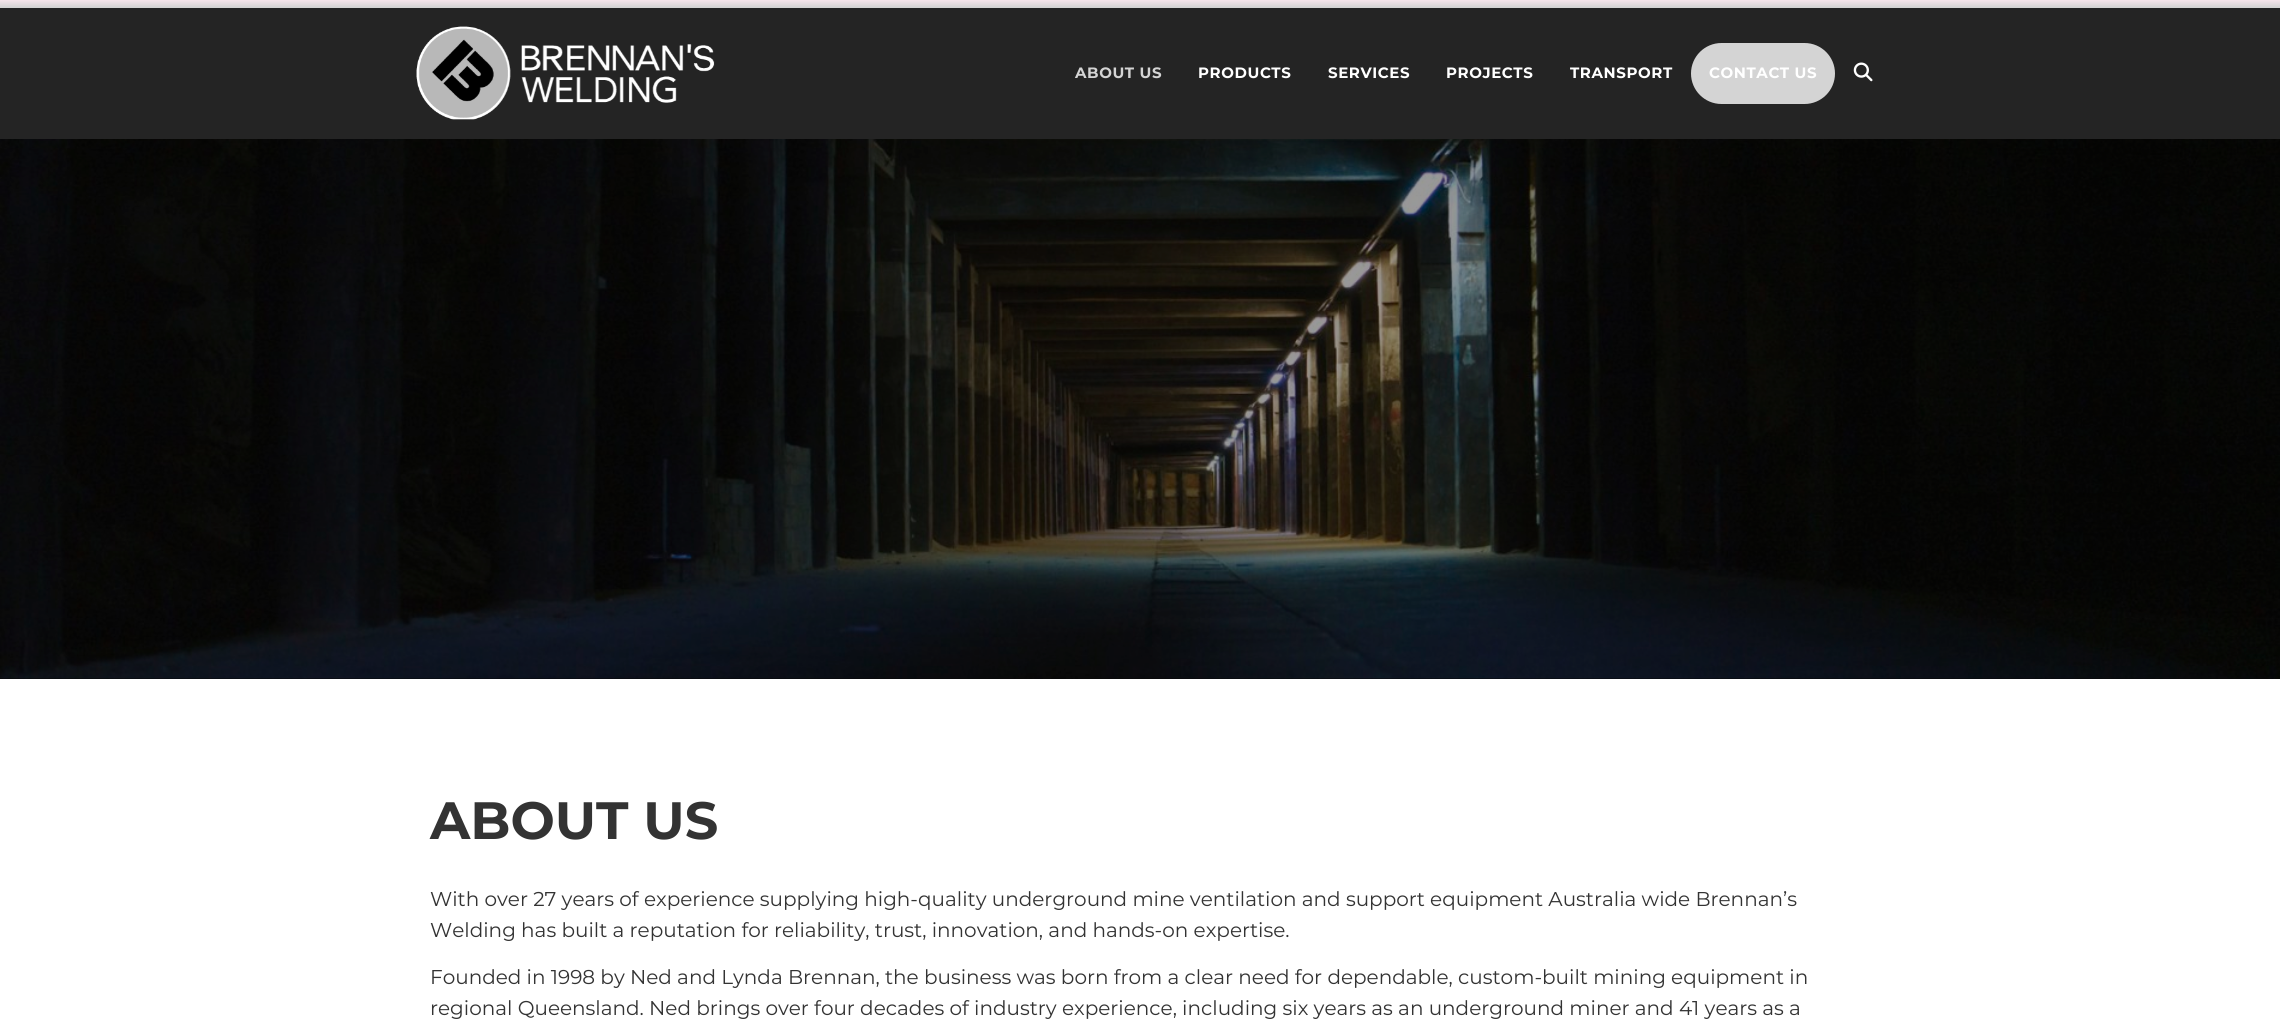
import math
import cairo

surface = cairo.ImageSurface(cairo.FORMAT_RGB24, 2280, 1035)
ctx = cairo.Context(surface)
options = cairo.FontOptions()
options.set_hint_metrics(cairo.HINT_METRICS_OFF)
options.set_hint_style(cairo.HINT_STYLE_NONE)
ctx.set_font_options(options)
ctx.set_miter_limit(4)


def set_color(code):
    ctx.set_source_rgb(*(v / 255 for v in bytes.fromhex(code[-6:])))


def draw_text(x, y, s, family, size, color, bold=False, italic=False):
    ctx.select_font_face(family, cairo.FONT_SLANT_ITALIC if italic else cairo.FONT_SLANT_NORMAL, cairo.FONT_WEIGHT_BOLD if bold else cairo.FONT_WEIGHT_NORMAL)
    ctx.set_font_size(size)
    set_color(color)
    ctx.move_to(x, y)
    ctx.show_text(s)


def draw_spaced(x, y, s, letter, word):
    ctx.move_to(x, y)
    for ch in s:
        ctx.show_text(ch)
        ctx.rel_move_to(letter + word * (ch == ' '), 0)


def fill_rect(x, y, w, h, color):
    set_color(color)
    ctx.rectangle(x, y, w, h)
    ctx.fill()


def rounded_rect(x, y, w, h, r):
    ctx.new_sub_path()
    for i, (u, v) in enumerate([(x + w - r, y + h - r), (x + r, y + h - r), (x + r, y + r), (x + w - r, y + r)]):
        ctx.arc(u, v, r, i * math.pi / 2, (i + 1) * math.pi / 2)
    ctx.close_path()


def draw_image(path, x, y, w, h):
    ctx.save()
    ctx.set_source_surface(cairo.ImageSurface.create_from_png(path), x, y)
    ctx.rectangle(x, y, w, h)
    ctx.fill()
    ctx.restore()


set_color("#ffffff")
ctx.paint()
gradient = cairo.LinearGradient(1140, 7.5, 1140, 0)
gradient.add_color_stop_rgba(0, 0.831, 0.831, 0.831, 1)
gradient.add_color_stop_rgba(1, 0.965, 0.898, 0.925, 1)
ctx.set_source(gradient)
ctx.rectangle(0, 0, 2280, 8)
ctx.fill()
fill_rect(0, 8, 2280, 131, "#242424")
draw_image("assets/img1.png", 416, 26, 299, 94)
ctx.select_font_face("Montserrat", cairo.FONT_SLANT_NORMAL, cairo.FONT_WEIGHT_BOLD)
ctx.set_font_size(15)
set_color("#d4d4d4")
draw_spaced(1075, 78, "ABOUT US", 0.6, 0)
set_color("#ffffff")
draw_spaced(1198, 78, "PRODUCTS", 0.6, 0)
draw_spaced(1328, 78, "SERVICES", 0.6, 0)
draw_spaced(1446, 78, "PROJECTS", 0.6, 0)
draw_spaced(1570, 78, "TRANSPORT", 0.6, 0)
set_color("#d4d4d4")
rounded_rect(1691, 43, 144, 61, 30.5)
ctx.fill()
set_color("#ffffff")
draw_spaced(1709, 78, "CONTACT US", 0.6, 0)
draw_image("assets/img2.png", 1853, 62, 20, 20)
fill_rect(0, 678, 2280, 1, "#060706")
draw_image("assets/img3.png", 0, 139, 2280, 540)
draw_text(430, 839, "ABOUT US", "Montserrat", 52.5, "#333333", bold=True)
draw_text(430, 906, "With over 27 years of experience supplying high-quality underground mine ventilation and support equipment Australia wide Brennan’s", "Montserrat", 20, "#333333")
draw_text(430, 937, "Welding has built a reputation for reliability, trust, innovation, and hands-on expertise.", "Montserrat", 20, "#333333")
draw_text(430, 984, "Founded in 1998 by Ned and Lynda Brennan, the business was born from a clear need for dependable, custom-built mining equipment in", "Montserrat", 20, "#333333")
draw_text(430, 1015, "regional Queensland. Ned brings over four decades of industry experience, including six years as an underground miner and 41 years as a", "Montserrat", 20, "#333333")
surface.write_to_png("output.png")
